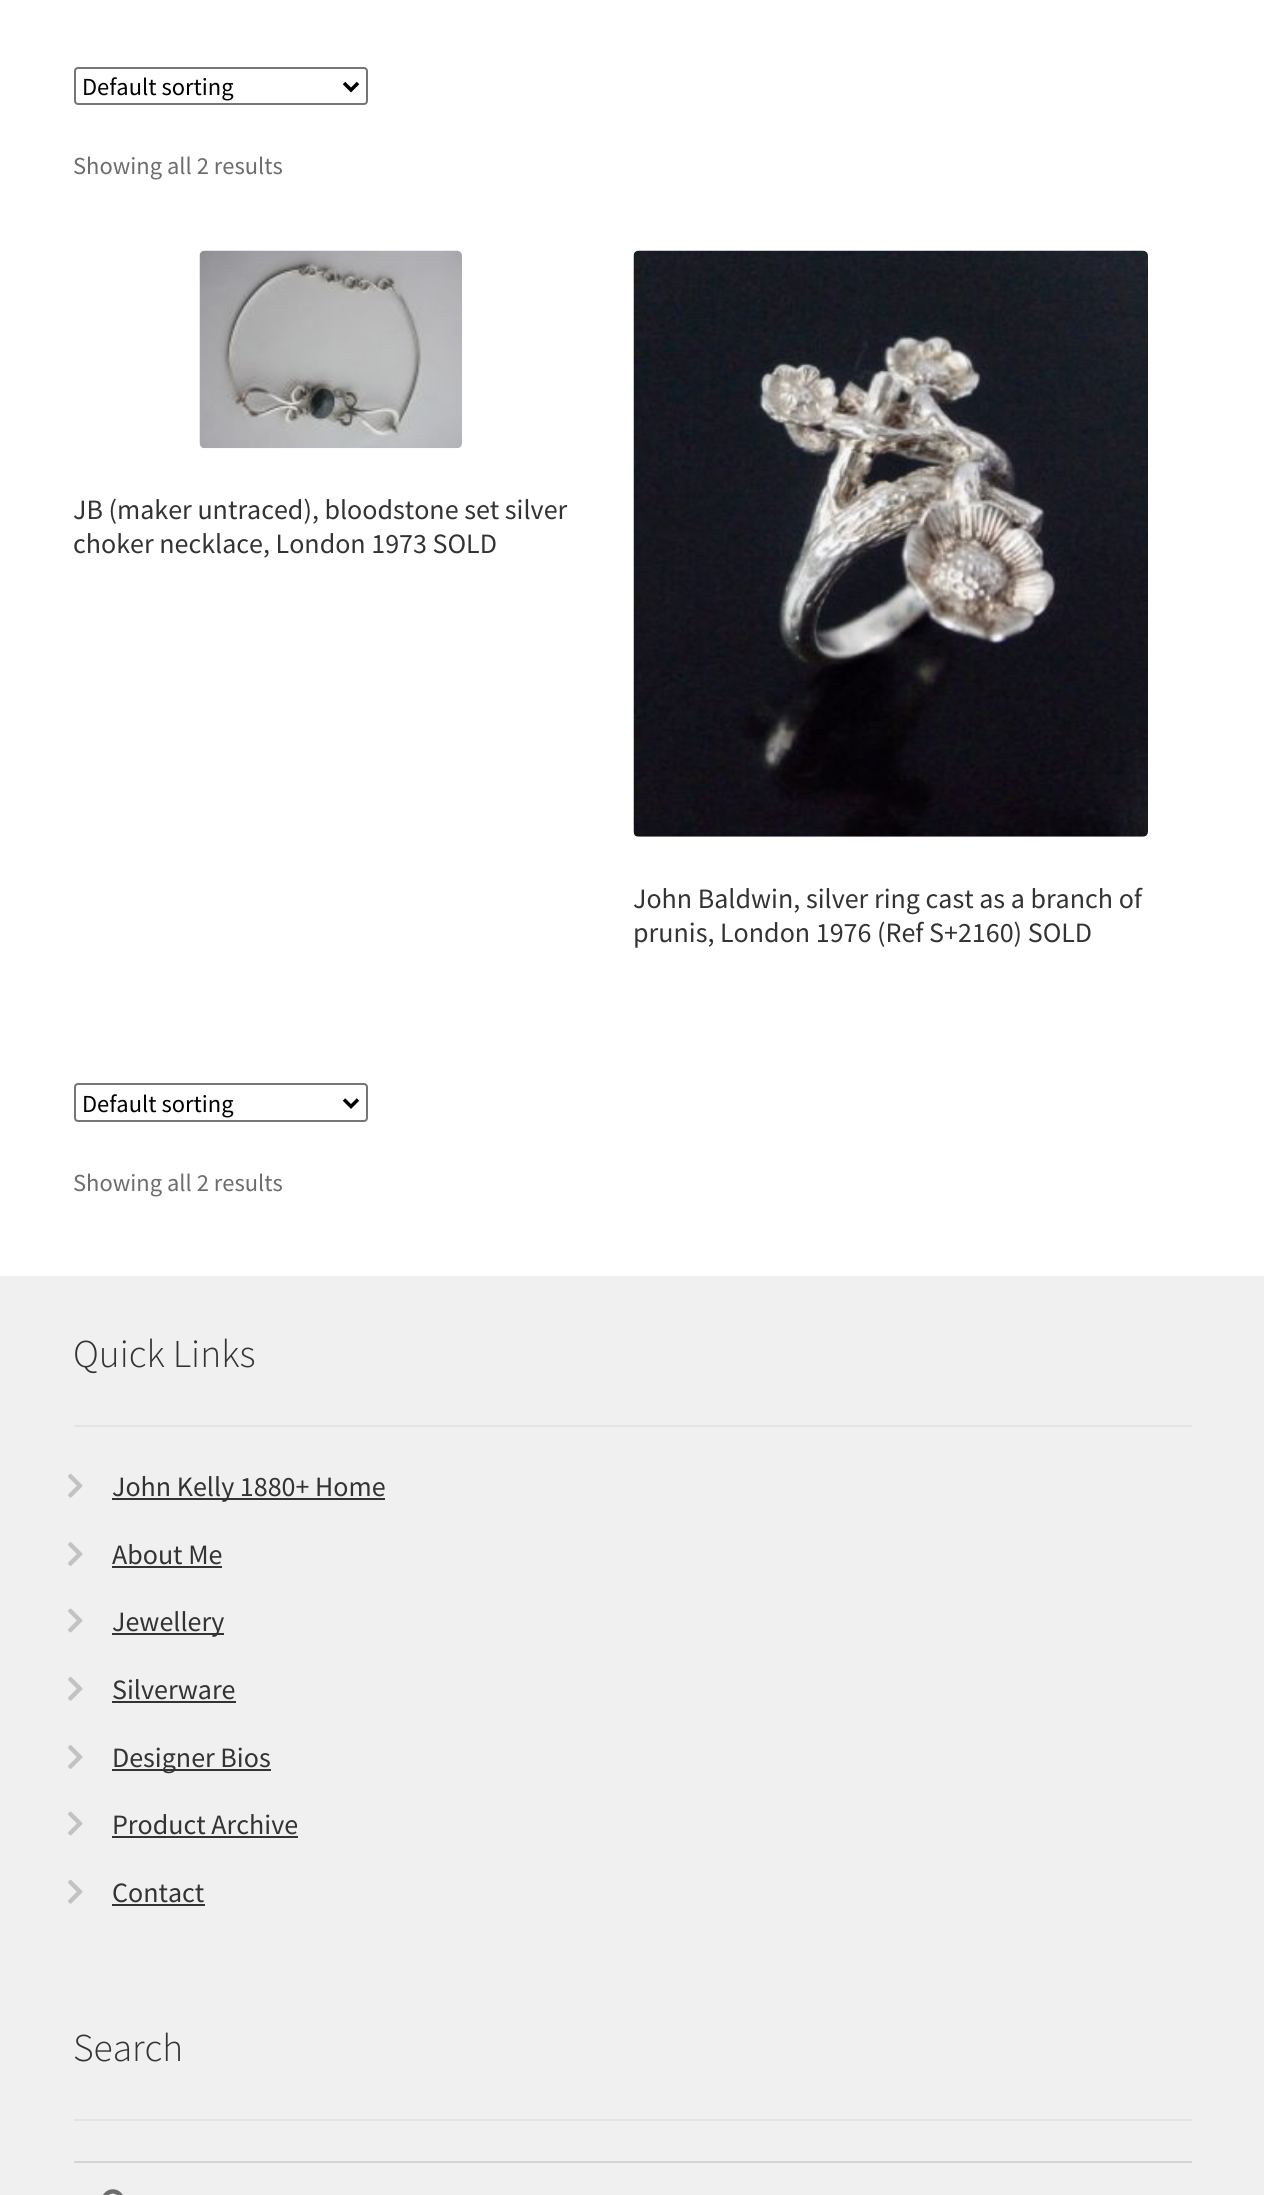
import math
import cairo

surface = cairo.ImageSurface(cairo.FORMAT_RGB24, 1264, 2195)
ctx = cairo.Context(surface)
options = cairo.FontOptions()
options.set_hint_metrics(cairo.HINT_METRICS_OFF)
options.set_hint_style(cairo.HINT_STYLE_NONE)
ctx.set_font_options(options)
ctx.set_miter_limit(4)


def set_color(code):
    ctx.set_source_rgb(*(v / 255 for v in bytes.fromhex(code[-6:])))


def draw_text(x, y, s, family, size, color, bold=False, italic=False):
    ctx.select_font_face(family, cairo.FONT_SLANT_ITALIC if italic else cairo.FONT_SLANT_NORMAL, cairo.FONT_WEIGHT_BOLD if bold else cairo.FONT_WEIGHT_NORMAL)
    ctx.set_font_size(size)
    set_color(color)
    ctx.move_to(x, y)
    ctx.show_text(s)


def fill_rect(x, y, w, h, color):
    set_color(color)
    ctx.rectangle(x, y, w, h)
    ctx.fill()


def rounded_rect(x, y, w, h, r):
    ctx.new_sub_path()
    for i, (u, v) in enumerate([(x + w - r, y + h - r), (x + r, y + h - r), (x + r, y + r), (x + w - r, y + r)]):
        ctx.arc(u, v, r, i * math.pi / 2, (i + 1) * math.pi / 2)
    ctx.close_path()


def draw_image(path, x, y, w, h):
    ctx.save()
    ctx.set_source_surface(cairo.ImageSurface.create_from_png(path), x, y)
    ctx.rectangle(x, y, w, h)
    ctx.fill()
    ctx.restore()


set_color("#ffffff")
ctx.paint()
rounded_rect(75, 68, 292, 36, 3)
set_color("#767676")
ctx.stroke()
ctx.new_path()
ctx.move_to(344, 83)
ctx.line_to(351, 90)
ctx.line_to(358, 83)
set_color("#000000")
ctx.set_line_width(3.5)
ctx.stroke()
draw_text(82, 95, "Default sorting", "Source Sans Pro", 24.5, "#000000")
draw_text(73, 174, "Showing all 2 results", "Source Sans Pro", 24.5, "#6d6d6d")
draw_image("assets/img1.png", 199, 250, 263, 199)
draw_text(73, 519, "JB (maker untraced), bloodstone set silver", "Source Sans Pro", 28, "#333333")
draw_text(73, 553, "choker necklace, London 1973 SOLD", "Source Sans Pro", 28, "#333333")
draw_image("assets/img2.png", 633, 250, 515, 587)
draw_text(633, 908, "John Baldwin, silver ring cast as a branch of", "Source Sans Pro", 28, "#333333")
draw_text(633, 942, "prunis, London 1976 (Ref S+2160) SOLD", "Source Sans Pro", 28, "#333333")
rounded_rect(75, 1084, 292, 37, 3)
set_color("#767676")
ctx.set_line_width(2)
ctx.stroke()
ctx.new_path()
ctx.move_to(344, 1099.5)
ctx.line_to(351, 1106.5)
ctx.line_to(358, 1099.5)
set_color("#000000")
ctx.set_line_width(3.5)
ctx.stroke()
draw_text(82, 1112, "Default sorting", "Source Sans Pro", 24.5, "#000000")
draw_text(73, 1191, "Showing all 2 results", "Source Sans Pro", 24.5, "#6d6d6d")
fill_rect(0, 1276, 1264, 919, "#f0f0f0")
fill_rect(74, 1425, 1118, 2, "#e4e4e4")
draw_text(73, 1367, "Quick Links", "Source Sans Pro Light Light", 39.5, "#333333")
draw_image("assets/img3.png", 68, 1473, 15, 25)
fill_rect(112, 1498, 273, 2, "#333333")
draw_text(112, 1496, "John Kelly 1880+ Home", "Source Sans Pro", 28, "#333333")
draw_image("assets/img4.png", 68, 1542, 15, 24)
draw_text(112, 1564, "About Me", "Source Sans Pro", 28, "#333333")
fill_rect(112, 1566, 110, 2, "#333333")
draw_image("assets/img5.png", 68, 1608, 15, 25)
fill_rect(112, 1633, 112, 2, "#333333")
draw_text(112, 1631, "Jewellery", "Source Sans Pro", 28, "#333333")
draw_image("assets/img3.png", 68, 1676, 15, 25)
draw_text(112, 1699, "Silverware", "Source Sans Pro", 28, "#333333")
fill_rect(112, 1701, 124, 2, "#333333")
draw_image("assets/img4.png", 68, 1745, 15, 24)
fill_rect(112, 1769, 159, 2, "#333333")
draw_text(112, 1767, "Designer Bios", "Source Sans Pro", 28, "#333333")
draw_image("assets/img5.png", 68, 1811, 15, 25)
draw_text(112, 1834, "Product Archive", "Source Sans Pro", 28, "#333333")
fill_rect(112, 1836, 186, 2, "#333333")
draw_image("assets/img3.png", 68, 1879, 15, 25)
draw_text(112, 1902, "Contact", "Source Sans Pro", 28, "#333333")
fill_rect(112, 1904, 93, 2, "#333333")
fill_rect(74, 2119, 1118, 2, "#e4e4e4")
draw_text(73, 2061, "Search", "Source Sans Pro Light Light", 39.5, "#333333")
fill_rect(74, 2161, 1118, 2, "#d4d4d4")
draw_image("assets/img6.png", 103, 2189, 20, 6)
surface.write_to_png("output.png")
